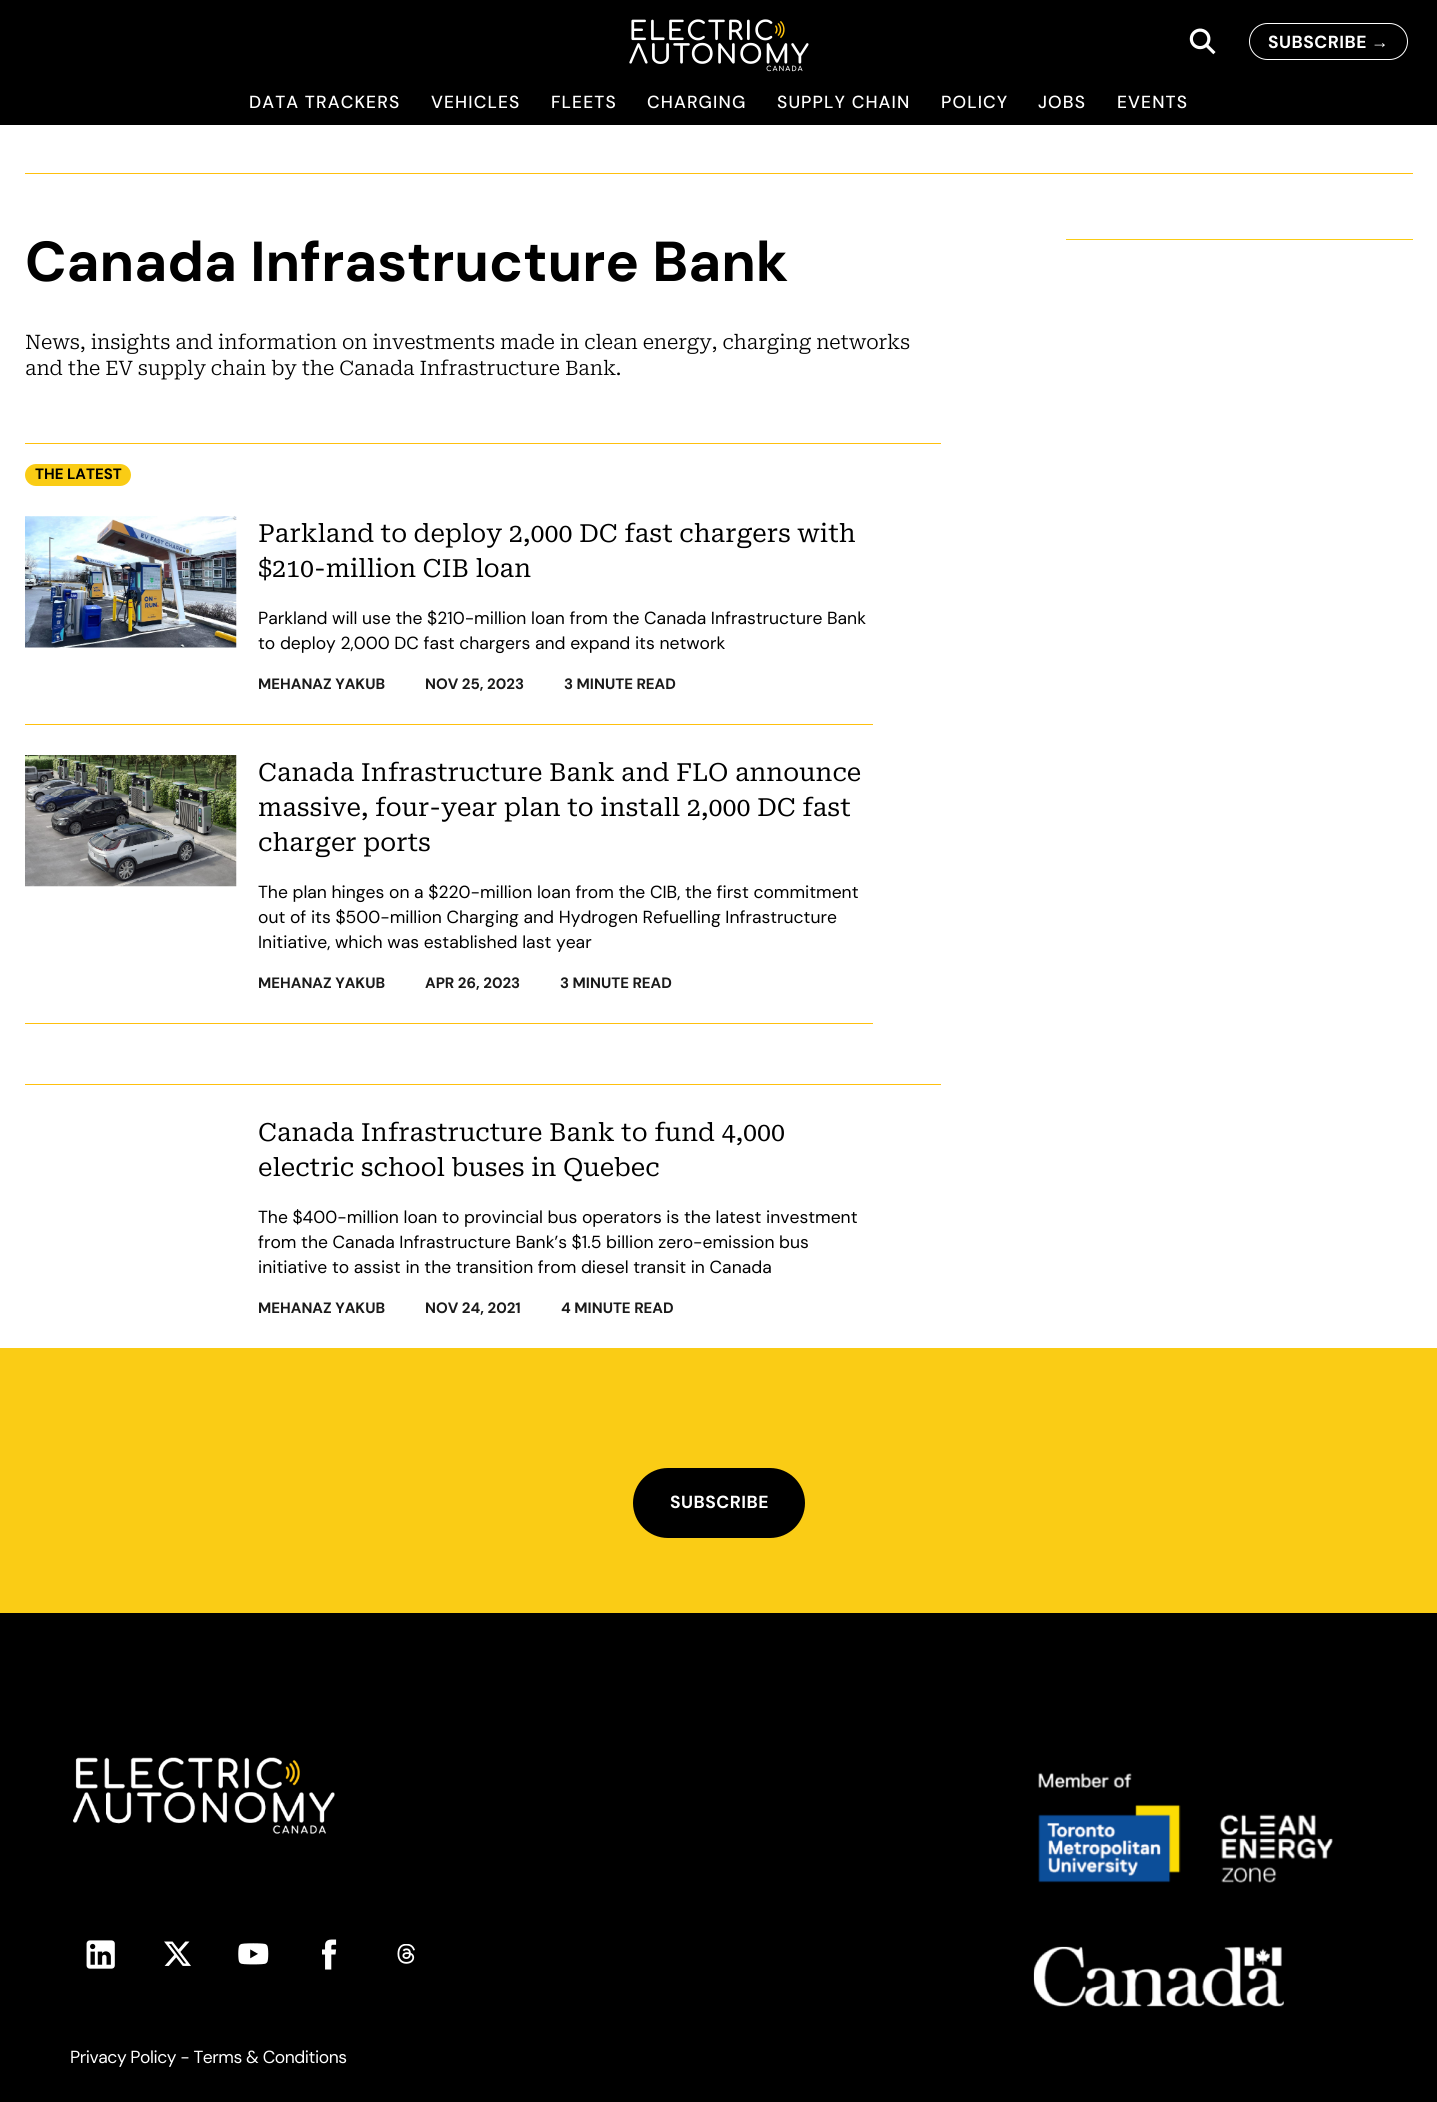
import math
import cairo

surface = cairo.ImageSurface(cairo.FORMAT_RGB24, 1437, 2102)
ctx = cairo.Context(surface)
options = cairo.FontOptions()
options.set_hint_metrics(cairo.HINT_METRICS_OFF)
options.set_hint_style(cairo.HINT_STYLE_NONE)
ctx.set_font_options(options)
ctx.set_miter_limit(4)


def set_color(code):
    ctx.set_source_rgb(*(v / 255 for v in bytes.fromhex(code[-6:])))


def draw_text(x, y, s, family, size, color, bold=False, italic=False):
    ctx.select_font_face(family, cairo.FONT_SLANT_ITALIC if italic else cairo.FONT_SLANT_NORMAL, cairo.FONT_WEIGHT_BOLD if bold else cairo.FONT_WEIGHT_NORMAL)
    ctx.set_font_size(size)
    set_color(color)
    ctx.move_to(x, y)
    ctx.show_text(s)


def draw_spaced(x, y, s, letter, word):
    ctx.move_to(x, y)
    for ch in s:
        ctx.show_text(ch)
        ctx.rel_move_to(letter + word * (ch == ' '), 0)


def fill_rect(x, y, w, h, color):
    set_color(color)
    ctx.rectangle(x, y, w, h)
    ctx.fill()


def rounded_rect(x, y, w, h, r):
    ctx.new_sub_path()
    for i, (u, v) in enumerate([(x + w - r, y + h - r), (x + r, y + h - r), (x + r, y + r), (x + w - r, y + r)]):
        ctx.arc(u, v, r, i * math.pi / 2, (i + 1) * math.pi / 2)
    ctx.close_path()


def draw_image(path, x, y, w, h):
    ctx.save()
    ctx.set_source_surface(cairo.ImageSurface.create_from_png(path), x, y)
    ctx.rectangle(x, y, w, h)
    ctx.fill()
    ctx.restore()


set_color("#ffffff")
ctx.paint()
fill_rect(0, 0, 1437, 125, "#000000")
draw_image("assets/img1.png", 629, 19, 180, 53)
draw_image("assets/img2.png", 1189, 28, 27, 27)
rounded_rect(1249.5, 23.5, 158, 36, 18)
set_color("#ffffff")
ctx.set_line_width(1)
ctx.stroke()
ctx.select_font_face("DM Sans", cairo.FONT_SLANT_NORMAL, cairo.FONT_WEIGHT_BOLD)
ctx.set_font_size(17.5)
draw_spaced(1268, 48, "SUBSCRIBE", 0.5, 0)
ctx.select_font_face("Liberation Sans", cairo.FONT_SLANT_NORMAL, cairo.FONT_WEIGHT_BOLD)
draw_spaced(1371, 48, "→", 0.5, 0)
ctx.select_font_face("DM Sans Medium")
draw_spaced(249, 108, "DATA TRACKERS", 1.1, 0)
draw_spaced(431, 108, "VEHICLES", 1.1, 0)
draw_spaced(551, 108, "FLEETS", 1.1, 0)
draw_spaced(647, 108, "CHARGING", 1.1, 0)
draw_spaced(777, 108, "SUPPLY CHAIN", 1.1, 0)
draw_spaced(941, 108, "POLICY", 1.1, 0)
draw_spaced(1038, 108, "JOBS", 1.1, 0)
draw_spaced(1117, 108, "EVENTS", 1.1, 0)
fill_rect(25, 173, 1388, 1, "#ffc00d")
fill_rect(1066, 239, 347, 1, "#facc15")
draw_text(25, 281, "Canada Infrastructure Bank", "DM Sans", 56.25, "#000000", bold=True)
ctx.select_font_face("Roboto Serif Light")
ctx.set_font_size(20)
draw_spaced(25, 349, "News, insights and information on investments made in clean energy, charging networks", -0.15, 0)
draw_spaced(25, 375, "and the EV supply chain by the Canada Infrastructure Bank.", -0.15, 0)
fill_rect(25, 443, 916, 1, "#ffc00d")
set_color("#facc15")
rounded_rect(25, 464, 106, 22, 11)
ctx.fill()
draw_text(35, 479, "THE LATEST", "DM Sans", 15, "#000000", bold=True)
draw_image("assets/img3.png", 25, 516, 212, 132)
draw_text(258, 542, "Parkland to deploy 2,000 DC fast chargers with", "Roboto Serif", 25, "#000000")
draw_text(258, 577, "$210-million CIB loan", "Roboto Serif", 25, "#000000")
draw_text(258, 624, "Parkland will use the $210-million loan from the Canada Infrastructure Bank", "DM Sans", 17.5, "#000000")
draw_text(258, 649, "to deploy 2,000 DC fast chargers and expand its network", "DM Sans", 17.5, "#000000")
draw_text(258, 689, "MEHANAZ YAKUB", "DM Sans", 15, "#1a1a1a", bold=True)
draw_text(425, 689, "NOV 25, 2023", "DM Sans", 15, "#1a1a1a", bold=True)
draw_text(564, 689, "3 MINUTE READ", "DM Sans", 15, "#1a1a1a", bold=True)
fill_rect(25, 724, 848, 1, "#ffc00d")
fill_rect(25, 1023, 848, 1, "#ffc00d")
draw_image("assets/img4.png", 25, 755, 212, 132)
draw_text(258, 781, "Canada Infrastructure Bank and FLO announce", "Roboto Serif", 25, "#000000")
draw_text(258, 816, "massive, four-year plan to install 2,000 DC fast", "Roboto Serif", 25, "#000000")
draw_text(258, 851, "charger ports", "Roboto Serif", 25, "#000000")
draw_text(258, 898, "The plan hinges on a $220-million loan from the CIB, the first commitment", "DM Sans", 17.5, "#000000")
draw_text(258, 923, "out of its $500-million Charging and Hydrogen Refuelling Infrastructure", "DM Sans", 17.5, "#000000")
draw_text(258, 948, "Initiative, which was established last year", "DM Sans", 17.5, "#000000")
draw_text(258, 988, "MEHANAZ YAKUB", "DM Sans", 15, "#1a1a1a", bold=True)
draw_text(425, 988, "APR 26, 2023", "DM Sans", 15, "#1a1a1a", bold=True)
draw_text(560, 988, "3 MINUTE READ", "DM Sans", 15, "#1a1a1a", bold=True)
fill_rect(25, 1084, 916, 1, "#ffc00d")
draw_text(258, 1141, "Canada Infrastructure Bank to fund 4,000", "Roboto Serif", 25, "#000000")
draw_text(258, 1176, "electric school buses in Quebec", "Roboto Serif", 25, "#000000")
draw_text(258, 1223, "The $400-million loan to provincial bus operators is the latest investment", "DM Sans", 17.5, "#000000")
draw_text(258, 1248, "from the Canada Infrastructure Bank’s $1.5 billion zero-emission bus", "DM Sans", 17.5, "#000000")
draw_text(258, 1273, "initiative to assist in the transition from diesel transit in Canada", "DM Sans", 17.5, "#000000")
draw_text(258, 1313, "MEHANAZ YAKUB", "DM Sans", 15, "#1a1a1a", bold=True)
draw_text(425, 1313, "NOV 24, 2021", "DM Sans", 15, "#1a1a1a", bold=True)
draw_text(561, 1313, "4 MINUTE READ", "DM Sans", 15, "#1a1a1a", bold=True)
fill_rect(0, 1348, 1437, 265, "#facc15")
set_color("#000000")
rounded_rect(634.5, 1469.5, 169, 67, 33.5)
ctx.fill_preserve()
ctx.set_line_width(3)
ctx.stroke()
ctx.set_font_size(17.5)
set_color("#ffffff")
draw_spaced(670, 1508, "SUBSCRIBE", 0.5, 0)
fill_rect(0, 1613, 1437, 489, "#000000")
draw_image("assets/img5.png", 1038, 1772, 295, 111)
draw_image("assets/img6.png", 1033, 1946, 251, 61)
draw_image("assets/img7.png", 73, 1757, 262, 77)
draw_image("assets/img8.png", 86, 1940, 29, 29)
draw_image("assets/img9.png", 164, 1941, 27, 25)
draw_image("assets/img10.png", 238, 1943, 31, 22)
draw_image("assets/img11.png", 322, 1939, 15, 31)
draw_image("assets/img12.png", 397, 1944, 18, 20)
ctx.select_font_face("DM Sans")
set_color("#ffffff")
draw_spaced(70, 2063, "Privacy Policy - Terms & Conditions", -0.45, 0)
surface.write_to_png("output.png")
